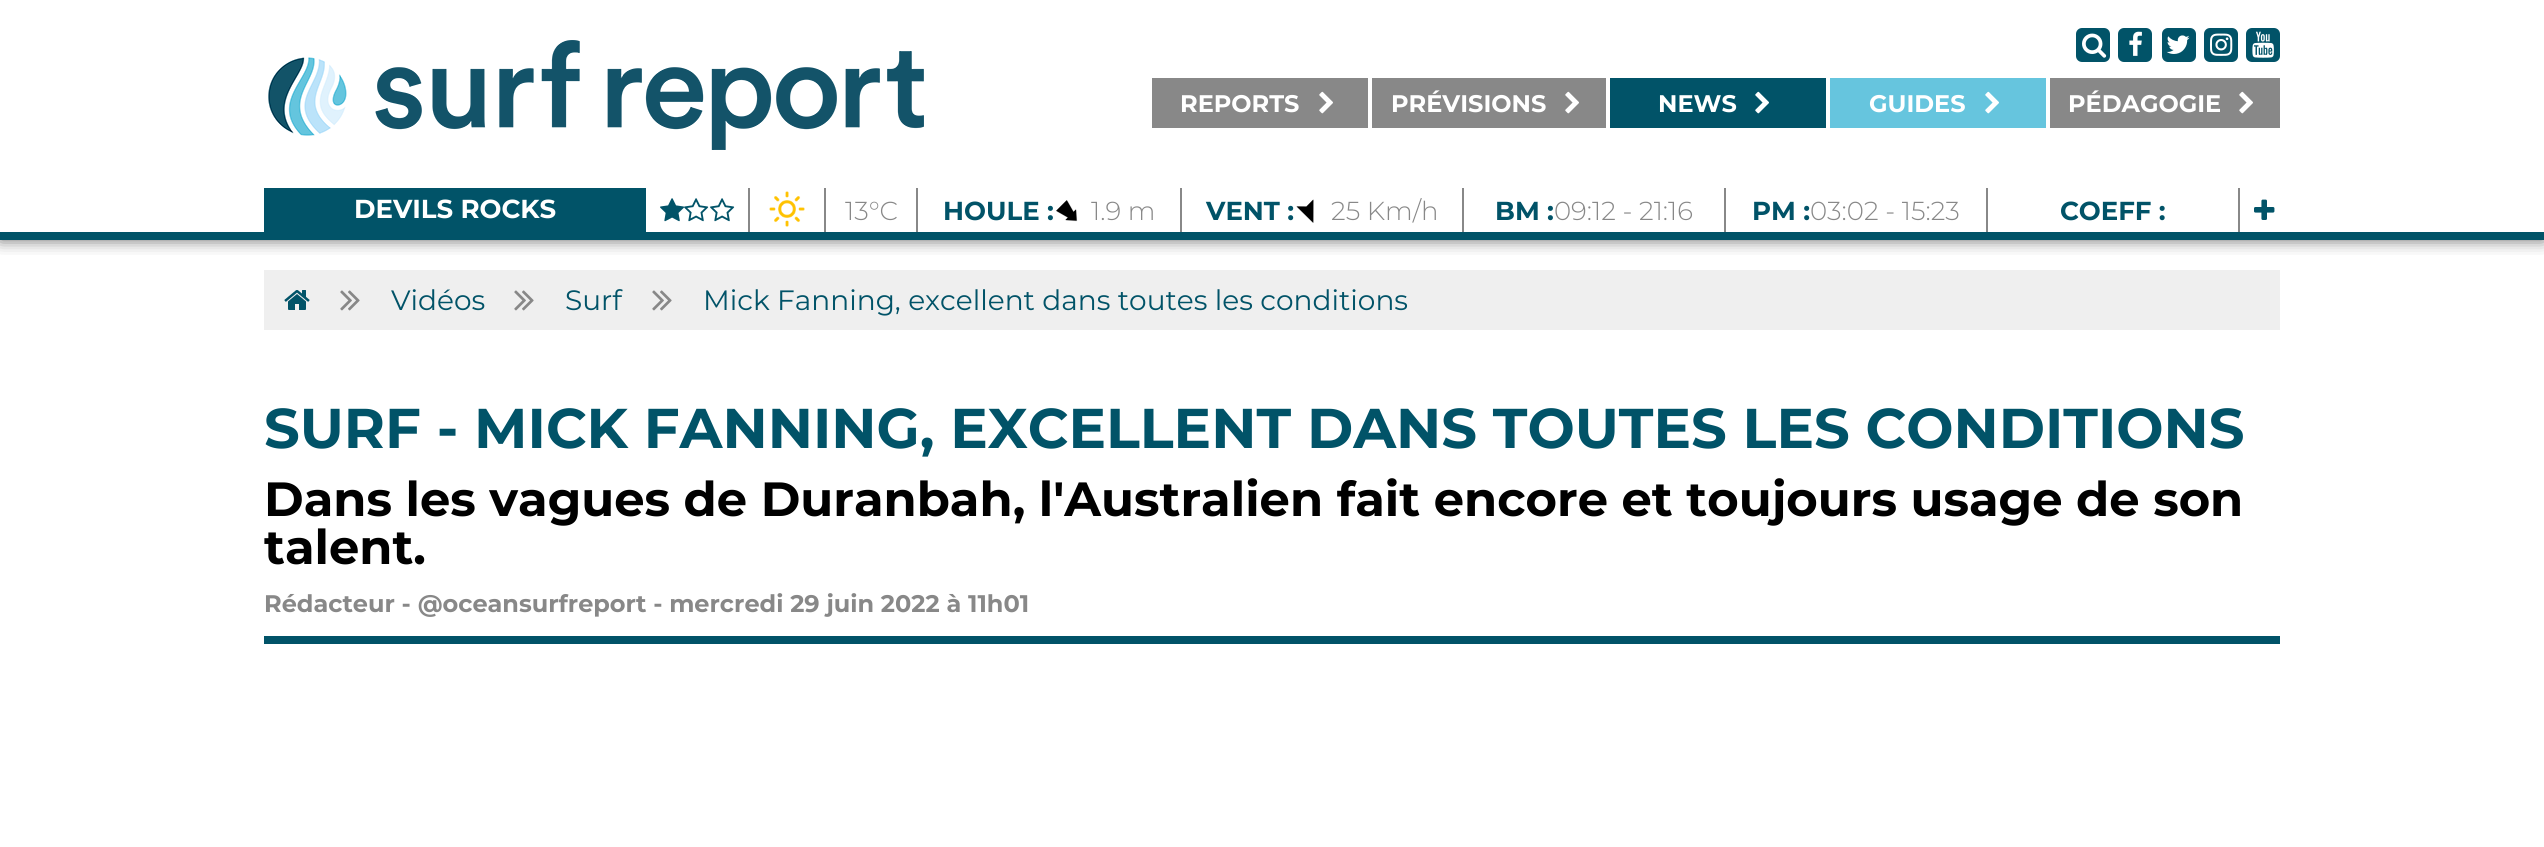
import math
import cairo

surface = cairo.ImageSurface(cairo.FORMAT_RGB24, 2544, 847)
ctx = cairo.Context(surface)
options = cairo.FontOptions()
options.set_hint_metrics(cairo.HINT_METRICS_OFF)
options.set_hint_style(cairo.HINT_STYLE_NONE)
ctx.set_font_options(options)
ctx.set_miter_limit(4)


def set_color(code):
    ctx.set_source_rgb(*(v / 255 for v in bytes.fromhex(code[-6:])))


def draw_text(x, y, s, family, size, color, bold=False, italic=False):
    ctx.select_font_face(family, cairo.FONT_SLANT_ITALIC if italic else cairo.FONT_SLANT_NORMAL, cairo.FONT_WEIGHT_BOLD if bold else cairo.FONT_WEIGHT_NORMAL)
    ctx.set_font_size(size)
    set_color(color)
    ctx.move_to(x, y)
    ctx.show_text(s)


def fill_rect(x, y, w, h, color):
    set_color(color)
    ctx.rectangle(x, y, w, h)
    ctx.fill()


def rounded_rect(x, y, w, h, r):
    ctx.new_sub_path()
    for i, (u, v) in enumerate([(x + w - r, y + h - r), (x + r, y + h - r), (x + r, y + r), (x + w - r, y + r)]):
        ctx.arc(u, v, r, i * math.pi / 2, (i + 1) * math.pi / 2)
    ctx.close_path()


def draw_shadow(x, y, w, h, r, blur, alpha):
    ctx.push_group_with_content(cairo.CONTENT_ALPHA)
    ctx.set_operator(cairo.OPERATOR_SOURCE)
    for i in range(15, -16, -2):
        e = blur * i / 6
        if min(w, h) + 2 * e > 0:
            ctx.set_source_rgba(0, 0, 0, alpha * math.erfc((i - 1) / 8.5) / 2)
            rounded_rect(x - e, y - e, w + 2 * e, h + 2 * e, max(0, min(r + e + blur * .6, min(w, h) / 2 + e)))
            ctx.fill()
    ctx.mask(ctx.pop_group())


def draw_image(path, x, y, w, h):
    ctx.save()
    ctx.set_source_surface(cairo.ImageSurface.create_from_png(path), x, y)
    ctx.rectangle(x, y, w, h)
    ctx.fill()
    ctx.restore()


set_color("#ffffff")
ctx.paint()
ctx.save()
ctx.rectangle(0, 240, 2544, 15)
ctx.clip()
set_color("#000000")
draw_shadow(0, 0, 2544, 240, 0, 8, 0.6)
ctx.restore()
fill_rect(0, 232, 2544, 8, "#015368")
draw_image("assets/img1.png", 268, 40, 656, 110)
rounded_rect(2076, 28, 34, 34, 6)
ctx.fill()
draw_image("assets/img2.png", 2082, 33, 25, 25)
rounded_rect(2118, 28, 34, 34, 6)
ctx.fill()
draw_image("assets/img3.png", 2129, 31, 13, 25)
rounded_rect(2162, 28, 34, 34, 6)
ctx.fill()
draw_image("assets/img4.png", 2166, 35, 24, 19)
rounded_rect(2204, 28, 34, 34, 6)
ctx.fill()
draw_image("assets/img5.png", 2210, 33, 23, 23)
rounded_rect(2246, 28, 34, 34, 6)
ctx.fill()
draw_image("assets/img6.png", 2252, 31, 22, 27)
fill_rect(1152, 78, 216, 50, "#888888")
draw_text(1180, 112, "REPORTS", "Montserrat", 24, "#ffffff", bold=True)
draw_image("assets/img7.png", 1319, 91, 14, 23)
fill_rect(1372, 78, 234, 50, "#888888")
draw_text(1391, 112, "PRÉVISIONS", "Montserrat", 24, "#ffffff", bold=True)
draw_image("assets/img7.png", 1565, 91, 14, 23)
fill_rect(1610, 78, 216, 50, "#015368")
draw_text(1658, 112, "NEWS", "Montserrat", 24, "#ffffff", bold=True)
draw_image("assets/img8.png", 1755, 91, 14, 23)
fill_rect(1830, 78, 216, 50, "#66c5de")
draw_text(1869, 112, "GUIDES", "Montserrat", 24, "#ffffff", bold=True)
draw_image("assets/img9.png", 1985, 91, 14, 23)
fill_rect(2050, 78, 230, 50, "#888888")
draw_text(2068, 112, "PÉDAGOGIE", "Montserrat", 24, "#ffffff", bold=True)
draw_image("assets/img7.png", 2239, 91, 14, 23)
fill_rect(264, 188, 382, 44, "#015368")
draw_text(354, 218, "DEVILS ROCKS", "Montserrat", 26, "#ffffff", bold=True)
fill_rect(748, 188, 2, 44, "#888888")
draw_image("assets/img10.png", 660, 198, 25, 24)
draw_image("assets/img11.png", 684, 198, 25, 24)
draw_image("assets/img12.png", 710, 198, 25, 24)
fill_rect(824, 188, 2, 44, "#888888")
draw_image("assets/img13.png", 769, 191, 36, 36)
fill_rect(916, 188, 2, 44, "#888888")
draw_text(845, 220, "13°C", "Montserrat Light", 26, "#888888")
fill_rect(1180, 188, 2, 44, "#888888")
draw_text(943, 220, "HOULE :", "Montserrat", 26, "#015368", bold=True)
draw_image("assets/img14.png", 1056, 200, 22, 22)
draw_text(1091, 220, "1.9 m", "Montserrat Light", 26, "#888888")
fill_rect(1462, 188, 2, 44, "#888888")
draw_text(1206, 220, "VENT :", "Montserrat", 26, "#015368", bold=True)
draw_image("assets/img15.png", 1296, 199, 18, 24)
draw_text(1331, 220, "25 Km/h", "Montserrat Light", 26, "#888888")
fill_rect(1724, 188, 2, 44, "#888888")
draw_text(1495, 220, "BM :", "Montserrat", 26, "#015368", bold=True)
draw_text(1554, 220, "09:12 - 21:16", "Montserrat Light", 26, "#888888")
fill_rect(1986, 188, 2, 44, "#888888")
draw_text(1752, 220, "PM :", "Montserrat", 26, "#015368", bold=True)
draw_text(1810, 220, "03:02 - 15:23", "Montserrat Light", 26, "#888888")
fill_rect(2238, 188, 2, 44, "#888888")
draw_text(2060, 220, "COEFF :", "Montserrat", 26, "#015368", bold=True)
draw_image("assets/img16.png", 2254, 199, 21, 21)
fill_rect(264, 270, 2016, 60, "#efefef")
draw_image("assets/img17.png", 284, 290, 26, 20)
draw_image("assets/img18.png", 340, 290, 20, 21)
draw_text(391, 310, "Vidéos", "Montserrat", 28, "#015368")
draw_image("assets/img18.png", 514, 290, 20, 21)
draw_text(565, 310, "Surf", "Montserrat", 28, "#015368")
draw_image("assets/img18.png", 652, 290, 20, 21)
draw_text(703, 310, "Mick Fanning, excellent dans toutes les conditions", "Montserrat", 28, "#015368")
draw_text(264, 448, "SURF - MICK FANNING, EXCELLENT DANS TOUTES LES CONDITIONS", "Montserrat", 56, "#015368", bold=True)
draw_text(264, 516, "Dans les vagues de Duranbah, l'Australien fait encore et toujours usage de son", "Montserrat", 48, "#000000", bold=True)
draw_text(264, 564, "talent.", "Montserrat", 48, "#000000", bold=True)
fill_rect(264, 636, 2016, 8, "#015368")
draw_text(264, 612, "Rédacteur - @oceansurfreport - mercredi 29 juin 2022 à 11h01", "Montserrat", 24, "#888888", bold=True)
surface.write_to_png("output.png")
